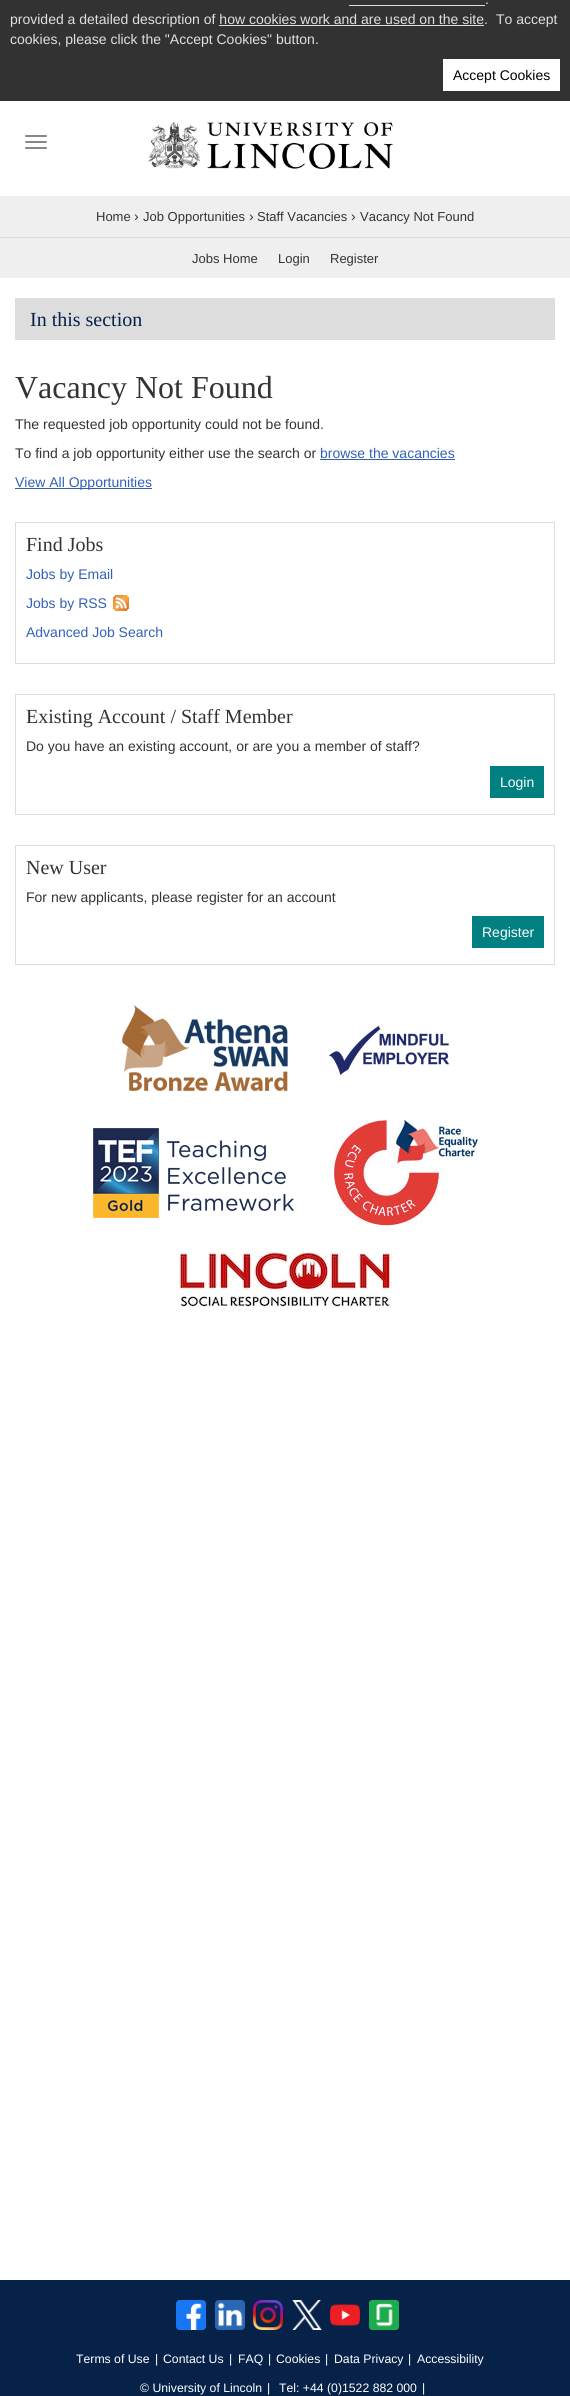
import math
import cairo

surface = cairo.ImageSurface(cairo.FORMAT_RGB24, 570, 2396)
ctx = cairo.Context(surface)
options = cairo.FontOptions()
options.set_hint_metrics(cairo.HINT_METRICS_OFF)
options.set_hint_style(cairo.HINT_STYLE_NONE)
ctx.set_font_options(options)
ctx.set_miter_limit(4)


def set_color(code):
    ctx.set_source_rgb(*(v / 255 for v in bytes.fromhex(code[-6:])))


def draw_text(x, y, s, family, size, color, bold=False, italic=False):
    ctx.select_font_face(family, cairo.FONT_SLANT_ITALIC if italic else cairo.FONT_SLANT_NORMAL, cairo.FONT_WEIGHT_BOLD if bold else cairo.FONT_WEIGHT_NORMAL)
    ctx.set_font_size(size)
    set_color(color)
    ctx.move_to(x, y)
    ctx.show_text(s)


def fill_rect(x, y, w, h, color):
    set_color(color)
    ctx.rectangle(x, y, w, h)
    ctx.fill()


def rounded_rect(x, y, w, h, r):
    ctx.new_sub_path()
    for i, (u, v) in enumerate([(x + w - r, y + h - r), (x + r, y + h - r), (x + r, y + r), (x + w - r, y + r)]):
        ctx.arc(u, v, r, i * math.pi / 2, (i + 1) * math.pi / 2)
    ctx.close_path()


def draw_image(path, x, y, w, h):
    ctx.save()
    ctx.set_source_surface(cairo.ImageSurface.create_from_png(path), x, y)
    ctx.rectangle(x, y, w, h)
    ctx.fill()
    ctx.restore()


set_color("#ffffff")
ctx.paint()
fill_rect(0, 0, 570, 101, "#323232")
draw_text(485, 4, ".", "Liberation Sans", 14, "#e0e0e0")
fill_rect(349, 5, 136, 1, "#e0e0e0")
draw_text(10, 24, "provided a detailed description of how cookies work and are used on the site.", "Liberation Sans", 14, "#e0e0e0")
draw_text(496, 24, "To accept", "Liberation Sans", 14, "#e0e0e0")
fill_rect(219, 25, 265, 1, "#e0e0e0")
draw_text(10, 44, "cookies, please click the \"Accept Cookies\" button.", "Liberation Sans", 14, "#e0e0e0")
fill_rect(443, 59, 117, 32, "#ffffff")
draw_text(453, 80, "Accept Cookies", "Liberation Sans", 14, "#000000")
set_color("#888888")
rounded_rect(25, 135, 22, 2, 1)
ctx.fill()
rounded_rect(25, 141, 22, 2, 1)
ctx.fill()
rounded_rect(25, 147, 22, 2, 1)
ctx.fill()
draw_image("assets/img1.png", 148, 122, 245, 47)
fill_rect(0, 196, 570, 82, "#efefef")
fill_rect(0, 237, 570, 1, "#dddddd")
draw_text(96, 221, "Home", "Liberation Sans", 13, "#333333")
draw_text(134, 221, "›", "Liberation Sans", 14, "#333333")
draw_text(143, 221, "Job Opportunities", "Liberation Sans", 13, "#333333")
draw_text(249, 221, "›", "Liberation Sans", 14, "#333333")
draw_text(257, 221, "Staff Vacancies", "Liberation Sans", 13, "#333333")
draw_text(351, 221, "›", "Liberation Sans", 14, "#333333")
draw_text(360, 221, "Vacancy Not Found", "Liberation Sans", 13, "#333333")
draw_text(192, 263, "Jobs Home", "Liberation Sans", 13, "#333333")
draw_text(278, 263, "Login", "Liberation Sans", 13, "#333333")
draw_text(330, 263, "Register", "Liberation Sans", 13, "#333333")
fill_rect(15, 298, 540, 42, "#dddddd")
draw_text(30, 326, "In this section", "Liberation Serif", 20, "#072249")
draw_text(15, 398, "Vacancy Not Found", "Liberation Serif", 32, "#333333")
draw_text(15, 429, "The requested job opportunity could not be found.", "Liberation Sans", 14, "#333333")
draw_text(15, 458, "To find a job opportunity either use the search or", "Liberation Sans", 14, "#333333")
draw_text(320, 458, "browse the vacancies", "Liberation Sans", 14, "#3360b7")
fill_rect(320, 459, 135, 1, "#3360b7")
fill_rect(15, 488, 137, 1, "#3360b7")
draw_text(15, 487, "View All Opportunities", "Liberation Sans", 14, "#3360b7")
ctx.rectangle(15.5, 522.5, 539, 141)
set_color("#dddddd")
ctx.set_line_width(1)
ctx.stroke()
draw_text(26, 551, "Find Jobs", "Liberation Serif", 20, "#333333")
draw_text(26, 579, "Jobs by Email", "Liberation Sans", 14, "#3360b7")
draw_text(26, 608, "Jobs by RSS", "Liberation Sans", 14, "#3360b7")
draw_image("assets/img2.png", 113, 595, 16, 16)
draw_text(26, 637, "Advanced Job Search", "Liberation Sans", 14, "#3360b7")
ctx.rectangle(15.5, 694.5, 539, 120)
set_color("#dddddd")
ctx.stroke()
draw_text(26, 723, "Existing Account / Staff Member", "Liberation Serif", 20, "#333333")
draw_text(26, 751, "Do you have an existing account, or are you a member of staff?", "Liberation Sans", 14, "#333333")
fill_rect(490, 766, 54, 32, "#008080")
draw_text(500, 787, "Login", "Liberation Sans", 14, "#ffffff")
ctx.rectangle(15.5, 845.5, 539, 119)
set_color("#dddddd")
ctx.stroke()
draw_text(26, 874, "New User", "Liberation Serif", 20, "#333333")
draw_text(26, 902, "For new applicants, please register for an account", "Liberation Sans", 14, "#333333")
fill_rect(472, 916, 72, 32, "#008080")
draw_text(482, 937, "Register", "Liberation Sans", 14, "#ffffff")
draw_image("assets/img3.png", 122, 1005, 166, 87)
draw_image("assets/img4.png", 329, 1026, 120, 49)
draw_image("assets/img5.png", 93, 1128, 201, 90)
draw_image("assets/img6.png", 334, 1120, 144, 106)
draw_image("assets/img7.png", 177, 1251, 216, 56)
fill_rect(0, 2280, 570, 116, "#072249")
draw_image("assets/img8.png", 176, 2300, 30, 30)
draw_image("assets/img9.png", 215, 2300, 30, 30)
draw_image("assets/img10.png", 253, 2300, 30, 30)
draw_image("assets/img11.png", 292, 2300, 30, 30)
draw_image("assets/img12.png", 330, 2303, 30, 24)
draw_image("assets/img13.png", 369, 2300, 30, 30)
draw_text(76, 2363, "Terms of Use", "Liberation Sans", 12.25, "#ffffff")
draw_text(155, 2363, "|", "Liberation Sans", 12.25, "#ffffff")
draw_text(163, 2363, "Contact Us", "Liberation Sans", 12.25, "#ffffff")
draw_text(229, 2363, "|", "Liberation Sans", 12.25, "#ffffff")
draw_text(238, 2363, "FAQ", "Liberation Sans", 12.25, "#ffffff")
draw_text(268, 2363, "|", "Liberation Sans", 12.25, "#ffffff")
draw_text(276, 2363, "Cookies", "Liberation Sans", 12.25, "#ffffff")
draw_text(325, 2363, "|", "Liberation Sans", 12.25, "#ffffff")
draw_text(334, 2363, "Data Privacy", "Liberation Sans", 12.25, "#ffffff")
draw_text(408, 2363, "|", "Liberation Sans", 12.25, "#ffffff")
draw_text(417, 2363, "Accessibility", "Liberation Sans", 12.25, "#ffffff")
draw_text(140, 2392, "© University of Lincoln", "Liberation Sans", 12.25, "#ffffff")
draw_text(267, 2392, "|", "Liberation Sans", 12.25, "#ffffff")
draw_text(279, 2392, "Tel: +44 (0)1522 882 000", "Liberation Sans", 12.25, "#ffffff")
draw_text(422, 2392, "|", "Liberation Sans", 12.25, "#ffffff")
surface.write_to_png("output.png")
